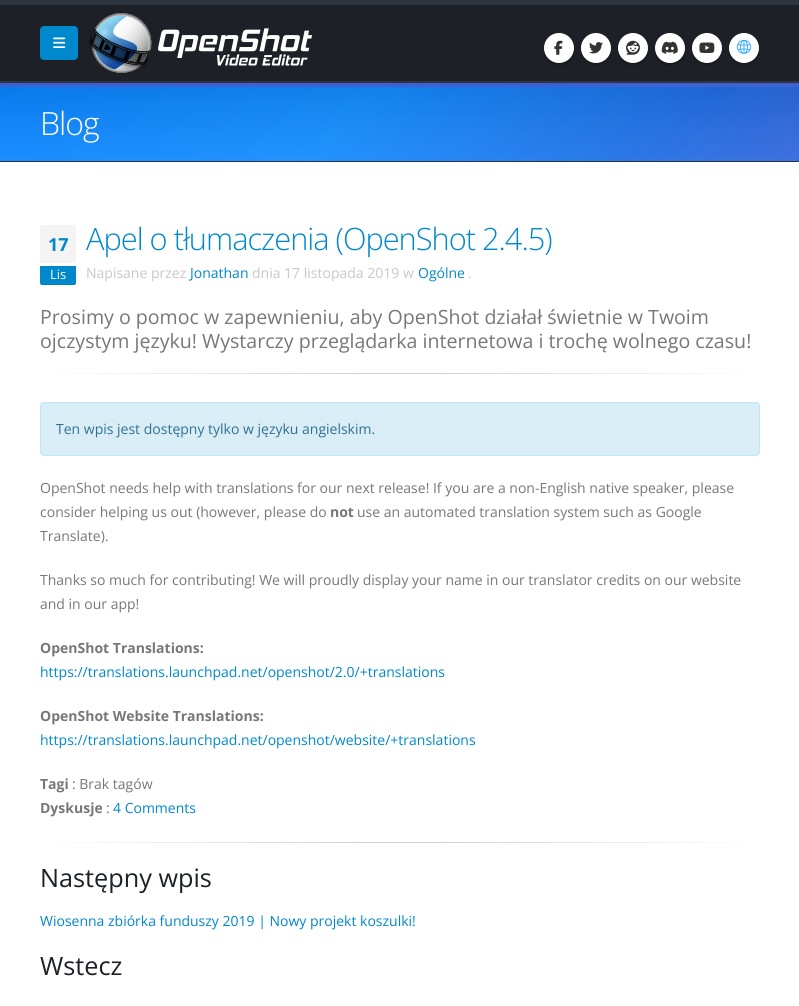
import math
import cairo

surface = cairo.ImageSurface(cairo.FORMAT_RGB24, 799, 1006)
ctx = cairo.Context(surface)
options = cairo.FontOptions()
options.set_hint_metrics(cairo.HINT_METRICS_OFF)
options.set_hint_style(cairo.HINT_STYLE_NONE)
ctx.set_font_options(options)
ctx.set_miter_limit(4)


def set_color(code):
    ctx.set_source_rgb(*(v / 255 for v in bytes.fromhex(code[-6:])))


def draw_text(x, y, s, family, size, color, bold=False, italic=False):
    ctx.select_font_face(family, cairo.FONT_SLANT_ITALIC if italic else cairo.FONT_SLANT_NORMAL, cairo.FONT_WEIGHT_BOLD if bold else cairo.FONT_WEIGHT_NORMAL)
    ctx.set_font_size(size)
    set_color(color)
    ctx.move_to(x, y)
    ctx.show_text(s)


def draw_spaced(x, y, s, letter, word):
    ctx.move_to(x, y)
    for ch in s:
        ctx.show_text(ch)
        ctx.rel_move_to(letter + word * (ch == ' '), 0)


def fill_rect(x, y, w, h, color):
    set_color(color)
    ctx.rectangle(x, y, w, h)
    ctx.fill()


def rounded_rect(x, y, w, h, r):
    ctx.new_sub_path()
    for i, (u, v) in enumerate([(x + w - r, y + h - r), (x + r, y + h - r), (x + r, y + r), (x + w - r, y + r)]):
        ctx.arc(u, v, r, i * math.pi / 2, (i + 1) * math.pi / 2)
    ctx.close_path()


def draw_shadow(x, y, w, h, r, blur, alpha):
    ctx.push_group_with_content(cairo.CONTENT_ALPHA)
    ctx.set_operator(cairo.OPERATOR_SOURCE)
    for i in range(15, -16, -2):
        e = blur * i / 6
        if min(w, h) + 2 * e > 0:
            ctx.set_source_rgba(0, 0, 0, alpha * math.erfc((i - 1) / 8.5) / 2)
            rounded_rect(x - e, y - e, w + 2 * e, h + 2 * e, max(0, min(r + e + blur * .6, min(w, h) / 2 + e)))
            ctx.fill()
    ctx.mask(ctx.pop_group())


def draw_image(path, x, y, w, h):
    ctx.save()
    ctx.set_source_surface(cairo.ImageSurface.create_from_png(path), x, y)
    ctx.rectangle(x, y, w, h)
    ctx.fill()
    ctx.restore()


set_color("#ffffff")
ctx.paint()
gradient = cairo.LinearGradient(363, -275, 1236, 598)
gradient.add_color_stop_rgba(0, 0.039, 0.518, 1, 1)
gradient.add_color_stop_rgba(0.22, 0.078, 0.549, 1, 1)
gradient.add_color_stop_rgba(0.4, 0.122, 0.435, 0.902, 1)
gradient.add_color_stop_rgba(0.56, 0.247, 0.388, 0.839, 1)
gradient.add_color_stop_rgba(0.74, 0.435, 0.4, 0.91, 1)
gradient.add_color_stop_rgba(0.86, 0.545, 0.412, 1, 1)
gradient.add_color_stop_rgba(1, 0.29, 0.204, 0.439, 1)
ctx.set_source(gradient)
ctx.rectangle(0, 87, 799, 74)
ctx.fill()
fill_rect(0, 83, 799, 4, "#3f63d6")
gradient = cairo.LinearGradient(400, 87, 400, 161)
gradient.add_color_stop_rgba(0, 0, 0, 0, 0.08)
gradient.add_color_stop_rgba(1, 1, 1, 1, 0.06)
ctx.set_source(gradient)
ctx.rectangle(0, 87, 799, 74)
ctx.fill()
set_color("#000000")
draw_shadow(0, 0, 799, 83, 0, 1.5, 0.1)
fill_rect(0, 5, 799, 76, "#1d2127")
fill_rect(0, 0, 799, 5, "#2e353e")
fill_rect(0, 81, 799, 2, "#2e353e")
draw_image("assets/img1.png", 89, 13, 223, 60)
set_color("#0088cc")
rounded_rect(40, 26, 38, 34, 4)
ctx.fill()
draw_image("assets/img2.png", 53, 37, 13, 11)
set_color("#000000")
draw_shadow(544, 35, 30, 30, 15, 1, 0.3)
set_color("#ffffff")
ctx.arc(559, 48, 15, 0, 2 * math.pi)
ctx.fill()
draw_image("assets/img3.png", 554, 40, 9, 15)
set_color("#000000")
draw_shadow(581, 35, 30, 30, 15, 1, 0.3)
set_color("#ffffff")
ctx.arc(596, 48, 15, 0, 2 * math.pi)
ctx.fill()
draw_image("assets/img4.png", 589, 42, 14, 12)
set_color("#000000")
draw_shadow(618, 35, 30, 30, 15, 1, 0.3)
set_color("#ffffff")
ctx.arc(633, 48, 15, 0, 2 * math.pi)
ctx.fill()
draw_image("assets/img5.png", 626, 40, 14, 15)
set_color("#000000")
draw_shadow(655, 35, 30, 30, 15, 1, 0.3)
set_color("#ffffff")
ctx.arc(670, 48, 15, 0, 2 * math.pi)
ctx.fill()
draw_image("assets/img6.png", 661, 41, 17, 13)
set_color("#000000")
draw_shadow(692, 35, 30, 30, 15, 1, 0.3)
set_color("#ffffff")
ctx.arc(707, 48, 15, 0, 2 * math.pi)
ctx.fill()
draw_image("assets/img7.png", 699, 42, 16, 11)
set_color("#000000")
draw_shadow(729, 35, 30, 30, 15, 1, 0.3)
set_color("#ffffff")
ctx.arc(744, 48, 15, 0, 2 * math.pi)
ctx.fill()
draw_image("assets/img8.png", 737, 39, 14, 15)
fill_rect(0, 161, 799, 1, "#283241")
ctx.select_font_face("Open Sans Light")
ctx.set_font_size(32)
set_color("#ffffff")
draw_spaced(40, 135, "Blog", -1, 0)
fill_rect(40, 225, 36, 38, "#f4f4f4")
draw_text(48, 251, "17", "Open Sans", 18, "#0088cc", bold=True)
ctx.new_path()
ctx.move_to(40, 266)
ctx.line_to(76, 266)
ctx.line_to(76, 283)
ctx.curve_to(76, 284, 75, 285, 74, 285)
ctx.line_to(42, 285)
ctx.curve_to(41, 285, 40, 284, 40, 283)
ctx.close_path()
ctx.fill()
draw_text(50, 279, "Lis", "Open Sans", 13, "#ffffff")
ctx.set_source_rgba(0, 0, 0, 0.07)
ctx.new_path()
ctx.move_to(40, 282)
ctx.curve_to(40, 286.5, 43.5, 285, 47.5, 285)
ctx.line_to(68.5, 285)
ctx.curve_to(72.5, 285, 76, 286.5, 76, 282)
ctx.curve_to(76, 283, 75, 284, 74, 284)
ctx.line_to(42, 284)
ctx.curve_to(41, 284, 40, 283, 40, 282)
ctx.close_path()
ctx.fill()
ctx.select_font_face("Open Sans Light")
ctx.set_font_size(30.75)
set_color("#0088cc")
draw_spaced(86, 250, "Apel o tłumaczenia (OpenShot 2.4.5)", -1, 0)
draw_text(86, 278, "Napisane przez", "Open Sans", 14, "#c7c7c7")
draw_text(190, 278, "Jonathan", "Open Sans", 14, "#0088cc")
draw_text(252, 278, "dnia 17 listopada 2019 w", "Open Sans", 14, "#c7c7c7")
draw_text(418, 278, "Ogólne", "Open Sans", 14, "#0088cc")
draw_text(468, 278, ".", "Open Sans", 14, "#c7c7c7")
draw_text(40, 324, "Prosimy o pomoc w zapewnieniu, aby OpenShot działał świetnie w Twoim", "Open Sans", 19.6, "#777777")
draw_text(40, 348, "ojczystym języku! Wystarczy przeglądarka internetowa i trochę wolnego czasu!", "Open Sans", 19.6, "#777777")
gradient = cairo.LinearGradient(40, 374, 760, 374)
gradient.add_color_stop_rgba(0, 1, 1, 1, 1)
gradient.add_color_stop_rgba(0.5, 0.8, 0.8, 0.8, 1)
gradient.add_color_stop_rgba(1, 1, 1, 1, 1)
ctx.set_source(gradient)
ctx.rectangle(58, 373, 684, 1)
ctx.fill()
set_color("#d9edf7")
rounded_rect(40.5, 402.5, 719, 53, 3.5)
ctx.fill_preserve()
set_color("#bce8f1")
ctx.set_line_width(1)
ctx.stroke()
draw_text(56, 434, "Ten wpis jest dostępny tylko w języku angielskim.", "Open Sans", 14, "#31708f")
draw_text(40, 493, "OpenShot needs help with translations for our next release! If you are a non-English native speaker, please", "Open Sans", 14, "#777777")
draw_text(40, 517, "consider helping us out (however, please do", "Open Sans", 14, "#777777")
draw_text(330, 517, "not", "Open Sans", 14, "#777777", bold=True)
draw_text(357, 517, "use an automated translation system such as Google", "Open Sans", 14, "#777777")
draw_text(40, 541, "Translate).", "Open Sans", 14, "#777777")
draw_text(40, 585, "Thanks so much for contributing! We will proudly display your name in our translator credits on our website", "Open Sans", 14, "#777777")
draw_text(40, 609, "and in our app!", "Open Sans", 14, "#777777")
draw_text(40, 653, "OpenShot Translations:", "Open Sans", 14, "#777777", bold=True)
draw_text(40, 677, "https://translations.launchpad.net/openshot/2.0/+translations", "Open Sans", 14, "#0088cc")
draw_text(40, 721, "OpenShot Website Translations:", "Open Sans", 14, "#777777", bold=True)
draw_text(40, 745, "https://translations.launchpad.net/openshot/website/+translations", "Open Sans", 14, "#0088cc")
draw_text(40, 789, "Tagi", "Open Sans", 14, "#777777", bold=True)
draw_text(72, 789, ": Brak tagów", "Open Sans", 14, "#777777")
draw_text(40, 813, "Dyskusje", "Open Sans", 14, "#777777", bold=True)
draw_text(106, 813, ":", "Open Sans", 14, "#777777")
draw_text(113, 813, "4 Comments", "Open Sans", 14, "#0088cc")
gradient = cairo.LinearGradient(40, 843, 760, 843)
gradient.add_color_stop_rgba(0, 1, 1, 1, 1)
gradient.add_color_stop_rgba(0.5, 0.8, 0.8, 0.8, 1)
gradient.add_color_stop_rgba(1, 1, 1, 1, 1)
ctx.set_source(gradient)
ctx.rectangle(58, 842, 684, 1)
ctx.fill()
draw_text(40, 887, "Następny wpis", "Open Sans", 25.25, "#1d2127")
draw_text(40, 926, "Wiosenna zbiórka funduszy 2019 | Nowy projekt koszulki!", "Open Sans", 14, "#0088cc")
draw_text(40, 975, "Wstecz", "Open Sans", 25.25, "#1d2127")
surface.write_to_png("output.png")
